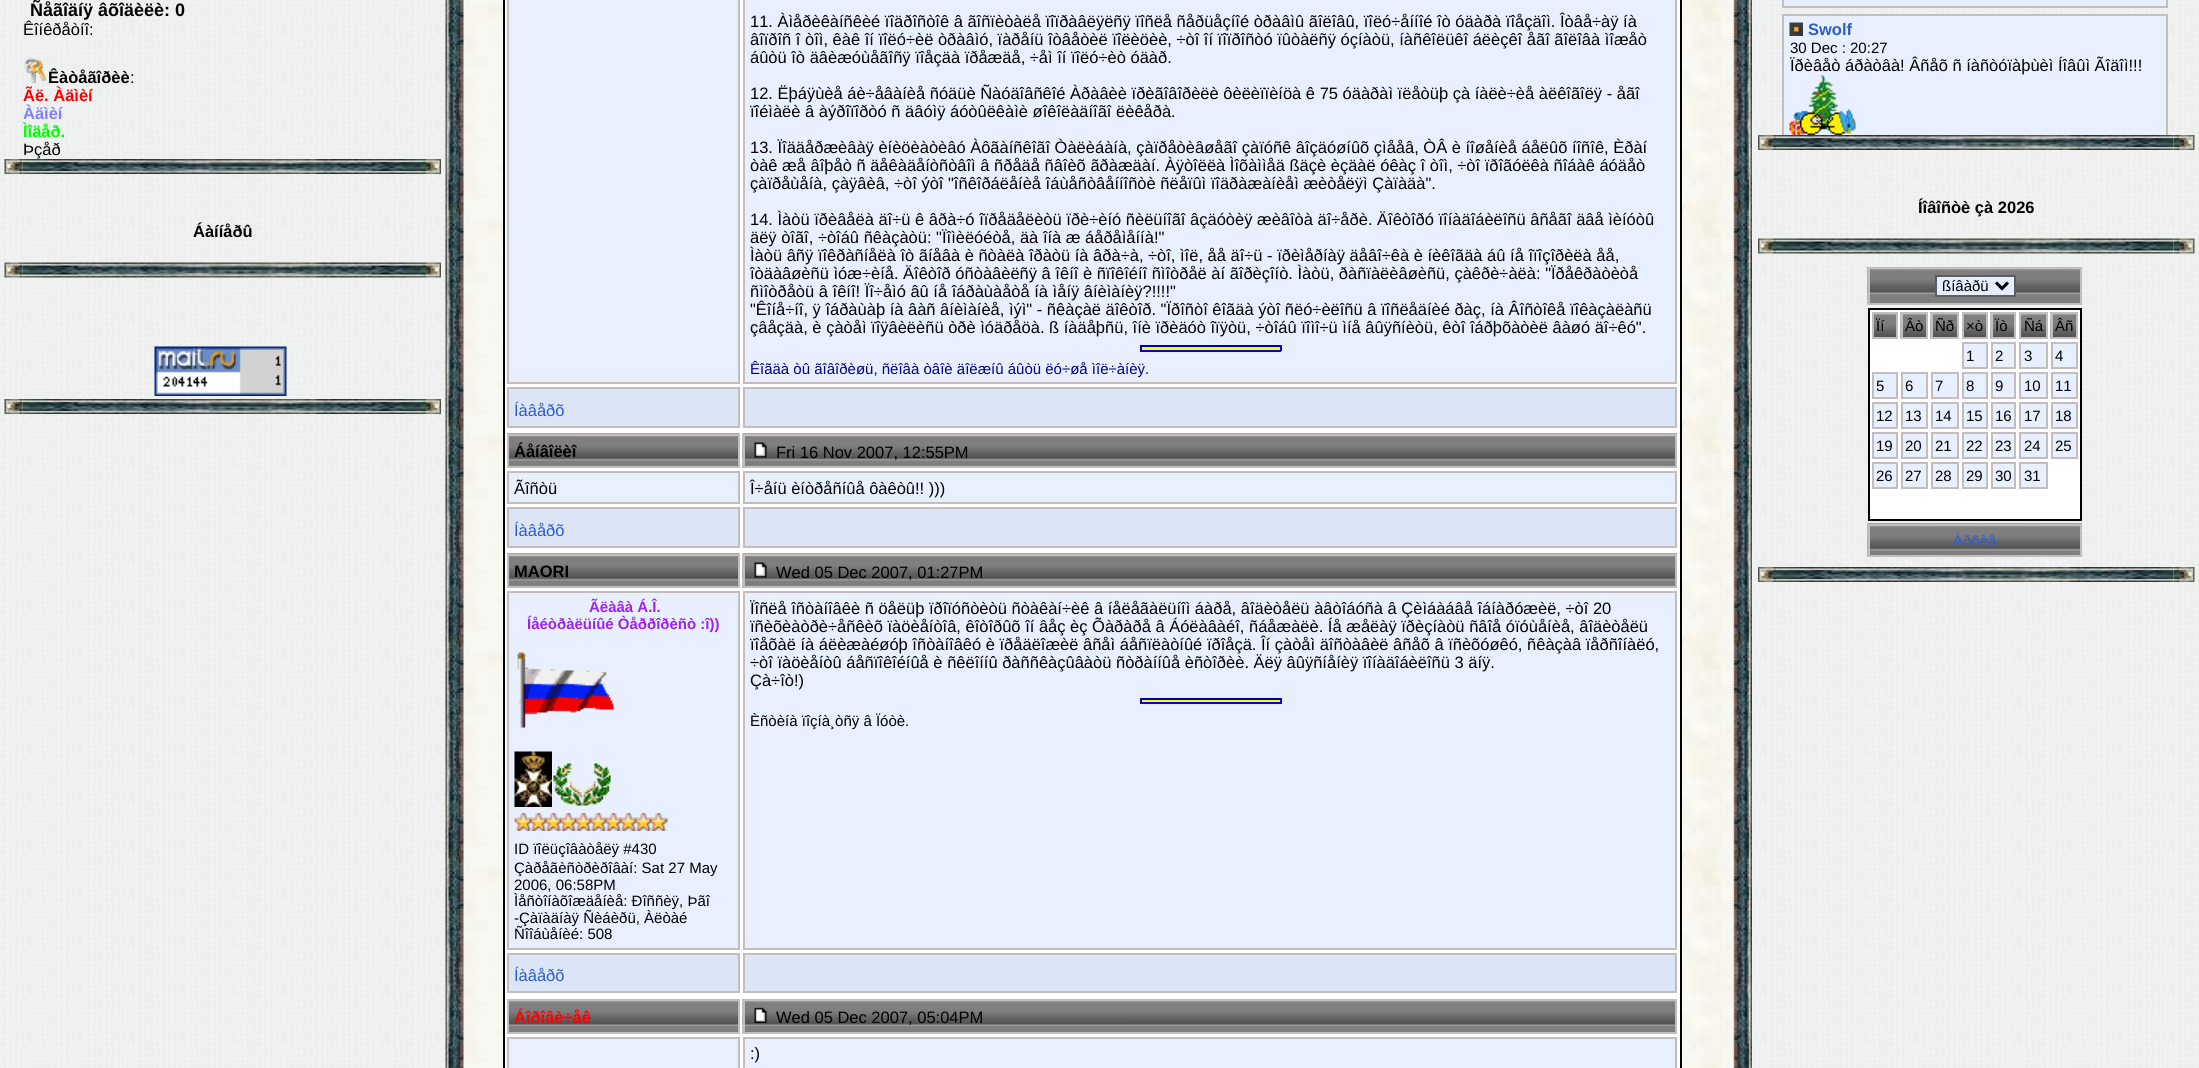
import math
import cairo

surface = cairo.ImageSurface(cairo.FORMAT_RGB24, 2199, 1068)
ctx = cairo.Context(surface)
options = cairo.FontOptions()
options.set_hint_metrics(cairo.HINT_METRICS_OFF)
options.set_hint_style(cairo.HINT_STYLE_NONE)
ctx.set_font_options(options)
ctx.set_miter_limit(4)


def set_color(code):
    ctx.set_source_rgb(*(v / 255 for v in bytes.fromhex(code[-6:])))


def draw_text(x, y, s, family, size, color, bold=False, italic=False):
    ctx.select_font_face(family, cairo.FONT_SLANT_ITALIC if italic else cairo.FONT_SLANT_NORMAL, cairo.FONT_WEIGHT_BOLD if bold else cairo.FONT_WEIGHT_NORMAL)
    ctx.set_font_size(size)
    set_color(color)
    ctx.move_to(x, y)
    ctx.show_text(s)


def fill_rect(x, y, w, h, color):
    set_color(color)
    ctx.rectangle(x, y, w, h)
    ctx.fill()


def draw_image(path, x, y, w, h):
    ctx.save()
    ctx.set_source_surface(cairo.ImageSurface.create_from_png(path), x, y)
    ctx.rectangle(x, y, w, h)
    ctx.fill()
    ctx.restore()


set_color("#ffffff")
ctx.paint()
draw_image("assets/img1.png", 0, 0, 2199, 1068)
draw_text(30, 16, "Ñåãîäíÿ âõîäèëè: 0", "Liberation Sans", 18, "#000000", bold=True)
draw_text(23, 35, "Êîíêðåòíî:", "Liberation Sans", 16.5, "#000000")
draw_image("assets/img2.png", 24, 58, 22, 25)
draw_text(48, 83, "Êàòåãîðèè", "Liberation Sans", 16.5, "#000000", bold=True)
draw_text(130, 83, ":", "Liberation Sans", 16.5, "#000000")
draw_text(23, 101, "Ãë. Àäìèí", "Liberation Sans", 16.5, "#ff0000", bold=True)
draw_text(23, 119, "Àäìèí", "Liberation Sans", 16.5, "#8080ff", bold=True)
draw_text(23, 137, "Ìîäåð.", "Liberation Sans", 16.5, "#00ff00", bold=True)
draw_text(23, 155, "Þçåð", "Liberation Sans", 16.5, "#000000")
draw_image("assets/img3.png", 4, 159, 19, 15)
draw_image("assets/img4.png", 22, 159, 398, 15)
draw_image("assets/img5.png", 420, 159, 21, 15)
draw_text(193, 237, "Áàííåðû", "Liberation Sans", 16.5, "#000000", bold=True)
draw_image("assets/img6.png", 4, 262, 19, 16)
draw_image("assets/img7.png", 22, 262, 398, 16)
draw_image("assets/img8.png", 420, 262, 21, 16)
draw_image("assets/img9.png", 154, 346, 133, 50)
draw_image("assets/img3.png", 4, 399, 19, 15)
draw_image("assets/img4.png", 22, 399, 398, 15)
draw_image("assets/img5.png", 420, 399, 21, 15)
draw_image("assets/img10.png", 445, 0, 20, 1068)
draw_image("assets/img11.png", 465, 0, 1256, 1068)
set_color("#ffffff")
ctx.rectangle(504, -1, 1177, 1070)
ctx.fill_preserve()
set_color("#000000")
ctx.stroke()
set_color("#e8efff")
ctx.rectangle(508, -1, 231, 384)
ctx.fill_preserve()
set_color("#c3bdbd")
ctx.stroke()
set_color("#e8efff")
ctx.rectangle(744, -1, 932, 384)
ctx.fill_preserve()
set_color("#c3bdbd")
ctx.stroke()
draw_text(750, 27, "11. Àìåðèêàíñêèé ïîäðîñòîê â ãîñïèòàëå ïîïðàâëÿëñÿ ïîñëå ñåðüåçíîé òðàâìû ãîëîâû, ïîëó÷åííîé îò óäàðà ïîåçäîì. Îòâå÷àÿ íà", "Liberation Sans", 16.5, "#000000")
draw_text(750, 45, "âîïðîñ î òîì, êàê îí ïîëó÷èë òðàâìó, ïàðåíü îòâåòèë ïîëèöèè, ÷òî îí ïîïðîñòó ïûòàëñÿ óçíàòü, íàñêîëüêî áëèçêî åãî ãîëîâà ìîæåò", "Liberation Sans", 16.5, "#000000")
draw_text(750, 63, "áûòü îò äâèæóùåãîñÿ ïîåçäà ïðåæäå, ÷åì îí ïîëó÷èò óäàð.", "Liberation Sans", 16.5, "#000000")
draw_text(750, 99, "12. Ëþáÿùèå áè÷åâàíèå ñóäüè Ñàóäîâñêîé Àðàâèè ïðèãîâîðèëè ôèëèïïèíöà ê 75 óäàðàì ïëåòüþ çà íàëè÷èå àëêîãîëÿ - åãî", "Liberation Sans", 16.5, "#000000")
draw_text(750, 117, "ïîéìàëè â àýðîïîðòó ñ äâóìÿ áóòûëêàìè øîêîëàäíîãî ëèêåðà.", "Liberation Sans", 16.5, "#000000")
draw_text(750, 153, "13. Ïîääåðæèâàÿ èíèöèàòèâó Àôãàíñêîãî Òàëèáàíà, çàïðåòèâøåãî çàïóñê âîçäóøíûõ çìååâ, ÒÂ è íîøåíèå áåëûõ íîñîê, Èðàí", "Liberation Sans", 16.5, "#000000")
draw_text(750, 171, "òàê æå âîþåò ñ äåêàäåíòñòâîì â ñðåäå ñâîèõ ãðàæäàí. Àÿòîëëà Ìîõàììåä ßäçè èçäàë óêàç î òîì, ÷òî ïðîãóëêà ñîáàê áóäåò", "Liberation Sans", 16.5, "#000000")
draw_text(750, 189, "çàïðåùåíà, çàÿâèâ, ÷òî ýòî \"îñêîðáëåíèå îáùåñòâåííîñòè ñëåïûì ïîäðàæàíèåì æèòåëÿì Çàïàäà\".", "Liberation Sans", 16.5, "#000000")
draw_text(750, 225, "14. Ìàòü ïðèâåëà äî÷ü ê âðà÷ó îïðåäåëèòü ïðè÷èíó ñèëüíîãî âçäóòèÿ æèâîòà äî÷åðè. Äîêòîðó ïîíàäîáèëîñü âñåãî äâå ìèíóòû", "Liberation Sans", 16.5, "#000000")
draw_text(750, 243, "äëÿ òîãî, ÷òîáû ñêàçàòü: \"Ïîìèëóéòå, äà îíà æ áåðåìåííà!\"", "Liberation Sans", 16.5, "#000000")
draw_text(750, 261, "Ìàòü âñÿ ïîêðàñíåëà îò ãíåâà è ñòàëà îðàòü íà âðà÷à, ÷òî, ìîë, åå äî÷ü - ïðèìåðíàÿ äåâî÷êà è íèêîãäà áû íå îïîçîðèëà åå,", "Liberation Sans", 16.5, "#000000")
draw_text(750, 279, "îòäàâøèñü ìóæ÷èíå. Äîêòîð óñòàâèëñÿ â îêíî è ñïîêîéíî ñìîòðåë àí ãîðèçîíò. Ìàòü, ðàñïàëèâøèñü, çàêðè÷àëà: \"Ïðåêðàòèòå", "Liberation Sans", 16.5, "#000000")
draw_text(750, 297, "ñìîòðåòü â îêíî! Ïî÷åìó âû íå îáðàùàåòå íà ìåíÿ âíèìàíèÿ?!!!!\"", "Liberation Sans", 16.5, "#000000")
draw_text(750, 315, "\"Êîíå÷íî, ÿ îáðàùàþ íà âàñ âíèìàíèå, ìýì\" - ñêàçàë äîêòîð. \"Ïðîñòî êîãäà ýòî ñëó÷èëîñü â ïîñëåäíèé ðàç, íà Âîñòîêå ïîêàçàëàñü", "Liberation Sans", 16.5, "#000000")
draw_text(750, 333, "çâåçäà, è çàòåì ïîÿâèëèñü òðè ìóäðåöà. ß íàäåþñü, îíè ïðèäóò îïÿòü, ÷òîáû ïîìî÷ü ìíå âûÿñíèòü, êòî îáðþõàòèë âàøó äî÷êó\".", "Liberation Sans", 16.5, "#000000")
fill_rect(1140, 347, 141, 3, "#ffff00")
fill_rect(1140, 345, 141, 2, "#0000aa")
fill_rect(1280, 345, 2, 6, "#0000ff")
fill_rect(1140, 350, 141, 2, "#0000ff")
fill_rect(1140, 345, 2, 6, "#0000aa")
draw_text(750, 374, "Êîãäà òû ãîâîðèøü, ñëîâà òâîè äîëæíû áûòü ëó÷øå ìîë÷àíèÿ.", "Liberation Sans", 15, "#00008b")
set_color("#dbe5f5")
ctx.rectangle(508, 388, 231, 39)
ctx.fill_preserve()
set_color("#c3bdbd")
ctx.stroke()
draw_text(514, 416, "Íàâåðõ", "Liberation Sans", 16.5, "#2c5dc9")
set_color("#dbe5f5")
ctx.rectangle(744, 388, 932, 39)
ctx.fill_preserve()
set_color("#c3bdbd")
ctx.stroke()
draw_image("assets/img12.png", 507, 433, 233, 33)
ctx.rectangle(508, 435, 231, 32)
ctx.stroke()
draw_text(514, 457, "Áåíâîëèî", "Liberation Sans", 16.5, "#000000", bold=True)
draw_image("assets/img13.png", 742, 433, 935, 35)
ctx.rectangle(744, 435, 932, 32)
set_color("#c3bdbd")
ctx.stroke()
draw_image("assets/img14.png", 754, 442, 13, 16)
draw_text(776, 458, "Fri 16 Nov 2007, 12:55PM", "Liberation Sans", 16.5, "#000000")
set_color("#e8efff")
ctx.rectangle(508, 472, 231, 31)
ctx.fill_preserve()
set_color("#c3bdbd")
ctx.stroke()
draw_text(514, 494, "Ãîñòü", "Liberation Sans", 16.5, "#000000")
set_color("#e8efff")
ctx.rectangle(744, 472, 932, 31)
ctx.fill_preserve()
set_color("#c3bdbd")
ctx.stroke()
draw_text(750, 494, "Î÷åíü èíòðåñíûå ôàêòû!! )))", "Liberation Sans", 16.5, "#000000")
set_color("#dbe5f5")
ctx.rectangle(508, 508, 231, 39)
ctx.fill_preserve()
set_color("#c3bdbd")
ctx.stroke()
draw_text(514, 536, "Íàâåðõ", "Liberation Sans", 16.5, "#2c5dc9")
set_color("#dbe5f5")
ctx.rectangle(744, 508, 932, 39)
ctx.fill_preserve()
set_color("#c3bdbd")
ctx.stroke()
draw_image("assets/img15.png", 507, 553, 233, 33)
ctx.rectangle(508, 555, 231, 32)
ctx.stroke()
draw_text(514, 577, "MAORI", "Liberation Sans", 16.5, "#000000", bold=True)
draw_image("assets/img16.png", 742, 553, 935, 35)
ctx.rectangle(744, 555, 932, 32)
set_color("#c3bdbd")
ctx.stroke()
draw_image("assets/img14.png", 754, 562, 13, 16)
draw_text(776, 578, "Wed 05 Dec 2007, 01:27PM", "Liberation Sans", 16.5, "#000000")
set_color("#e8efff")
ctx.rectangle(508, 592, 231, 357)
ctx.fill_preserve()
set_color("#c3bdbd")
ctx.stroke()
draw_text(589, 612, "Ãëàâà Á.Î.", "Liberation Sans", 15, "#a020f0", bold=True)
draw_text(527, 629, "Íåéòðàëüíûé Òåððîðèñò :î))", "Liberation Sans", 15, "#a020f0", bold=True)
draw_image("assets/img17.png", 517, 652, 97, 76)
draw_image("assets/img18.png", 514, 751, 38, 56)
draw_image("assets/img19.png", 553, 762, 59, 45)
draw_image("assets/img20.png", 514, 813, 154, 18)
draw_text(514, 854, "ID ïîëüçîâàòåëÿ #430", "Liberation Sans", 15, "#000000")
draw_text(514, 873, "Çàðåãèñòðèðîâàí: Sat 27 May", "Liberation Sans", 15, "#000000")
draw_text(514, 890, "2006, 06:58PM", "Liberation Sans", 15, "#000000")
draw_text(514, 906, "Ìåñòîíàõîæäåíèå: Ðîññèÿ, Þãî", "Liberation Sans", 15, "#000000")
draw_text(514, 923, "-Çàïàäíàÿ Ñèáèðü, Àëòàé", "Liberation Sans", 15, "#000000")
draw_text(514, 939, "Ñîîáùåíèé: 508", "Liberation Sans", 15, "#000000")
set_color("#e8efff")
ctx.rectangle(744, 592, 932, 357)
ctx.fill_preserve()
set_color("#c3bdbd")
ctx.stroke()
draw_text(750, 614, "Ïîñëå îñòàíîâêè ñ öåëüþ ïðîïóñòèòü ñòàêàí÷èê â íåëåãàëüíîì áàðå, âîäèòåëü àâòîáóñà â Çèìáàáâå îáíàðóæèë, ÷òî 20", "Liberation Sans", 16.5, "#000000")
draw_text(750, 632, "ïñèõèàòðè÷åñêèõ ïàöèåíòîâ, êîòîðûõ îí âåç èç Õàðàðå â Áóëàâàéî, ñáåæàëè. Íå æåëàÿ ïðèçíàòü ñâîå óïóùåíèå, âîäèòåëü", "Liberation Sans", 16.5, "#000000")
draw_text(750, 650, "ïîåõàë íà áëèæàéøóþ îñòàíîâêó è ïðåäëîæèë âñåì áåñïëàòíûé ïðîåçä. Îí çàòåì äîñòàâèë âñåõ â ïñèõóøêó, ñêàçàâ ïåðñîíàëó,", "Liberation Sans", 16.5, "#000000")
draw_text(750, 668, "÷òî ïàöèåíòû áåñïîêîéíûå è ñêëîííû ðàññêàçûâàòü ñòðàííûå èñòîðèè. Äëÿ âûÿñíåíèÿ ïîíàäîáèëîñü 3 äíÿ.", "Liberation Sans", 16.5, "#000000")
draw_text(750, 686, "Çà÷îò!)", "Liberation Sans", 16.5, "#000000")
fill_rect(1140, 700, 141, 2, "#ffff00")
fill_rect(1140, 698, 141, 2, "#0000aa")
fill_rect(1280, 698, 2, 6, "#0000ff")
fill_rect(1140, 702, 141, 2, "#0000ff")
fill_rect(1140, 698, 2, 6, "#0000aa")
draw_text(750, 726, "Èñòèíà ïîçíà¸òñÿ â Ïóòè.", "Liberation Sans", 15, "#000000")
set_color("#dbe5f5")
ctx.rectangle(508, 954, 231, 38)
ctx.fill_preserve()
set_color("#c3bdbd")
ctx.stroke()
draw_text(514, 981, "Íàâåðõ", "Liberation Sans", 16.5, "#2c5dc9")
set_color("#dbe5f5")
ctx.rectangle(744, 954, 932, 38)
ctx.fill_preserve()
set_color("#c3bdbd")
ctx.stroke()
draw_image("assets/img21.png", 509, 1001, 229, 31)
ctx.rectangle(508, 1000, 231, 33)
ctx.stroke()
draw_text(514, 1023, "Áîðîâè÷åê", "Liberation Sans", 16.5, "#ff0000", bold=True)
draw_image("assets/img22.png", 742, 999, 933, 35)
ctx.rectangle(744, 1000, 932, 33)
set_color("#c3bdbd")
ctx.stroke()
draw_image("assets/img23.png", 754, 1007, 13, 16)
draw_text(776, 1023, "Wed 05 Dec 2007, 05:04PM", "Liberation Sans", 16.5, "#000000")
set_color("#e8efff")
ctx.rectangle(508, 1038, 231, 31)
ctx.fill_preserve()
set_color("#c3bdbd")
ctx.stroke()
set_color("#e8efff")
ctx.rectangle(744, 1038, 932, 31)
ctx.fill_preserve()
set_color("#c3bdbd")
ctx.stroke()
draw_text(750, 1059, ":)", "Liberation Sans", 16.5, "#000000")
draw_image("assets/img24.png", 1720, 0, 32, 1068)
set_color("#e8efff")
ctx.rectangle(1783, -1, 384, 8)
ctx.fill_preserve()
set_color("#c3bdbd")
ctx.stroke()
fill_rect(1784, 16, 382, 119, "#e8efff")
draw_image("assets/img28.png", 1776, 135, 398, 15)
ctx.save()
ctx.rectangle(1776, 0, 398, 135)
ctx.clip()
ctx.rectangle(1783, 15, 384, 128)
set_color("#c3bdbd")
ctx.stroke()
ctx.restore()
draw_image("assets/img25.png", 1789, 22, 14, 14)
draw_text(1808, 35, "Swolf", "Liberation Sans", 16.5, "#2c5dc9", bold=True)
draw_text(1790, 53, "30 Dec : 20:27", "Liberation Sans", 15, "#000000")
draw_text(1790, 71, "Ïðèâåò áðàòâà! Âñåõ ñ íàñòóïàþùèì Íîâûì Ãîäîì!!!", "Liberation Sans", 16.5, "#000000")
draw_image("assets/img26.png", 1789, 75, 67, 60)
draw_image("assets/img27.png", 1758, 135, 18, 15)
draw_image("assets/img29.png", 2173, 135, 22, 15)
draw_text(1918, 213, "Íîâîñòè çà 2026", "Liberation Sans", 16.5, "#000000", bold=True)
draw_image("assets/img30.png", 1758, 238, 18, 16)
draw_image("assets/img31.png", 1776, 238, 398, 16)
draw_image("assets/img32.png", 2173, 238, 22, 16)
draw_image("assets/img33.png", 1867, 267, 213, 38)
ctx.rectangle(1869, 268, 212, 36)
set_color("#c3bdbd")
ctx.stroke()
set_color("#e6edff")
ctx.rectangle(1936, 276, 79, 20)
ctx.fill_preserve()
set_color("#5e5d63")
ctx.stroke()
ctx.new_path()
ctx.move_to(1996, 282.5)
ctx.line_to(2002, 288.5)
ctx.line_to(2008, 282.5)
set_color("#000000")
ctx.set_line_width(3)
ctx.stroke()
ctx.save()
ctx.rectangle(1943, 276, 48, 20)
ctx.clip()
draw_text(1942, 291, "ßíâàðü", "Liberation Sans", 15, "#000000")
ctx.restore()
set_color("#ffffff")
ctx.rectangle(1869, 309, 212, 211)
ctx.fill_preserve()
set_color("#000000")
ctx.set_line_width(2)
ctx.stroke()
draw_image("assets/img34.png", 1874, 314, 22, 23)
ctx.rectangle(1873, 313, 24, 25)
set_color("#c3bdbd")
ctx.stroke()
draw_text(1876, 331, "Ïí", "Liberation Sans", 15, "#000000")
draw_image("assets/img35.png", 1900, 312, 26, 27)
ctx.rectangle(1902, 313, 25, 25)
set_color("#c3bdbd")
ctx.stroke()
draw_text(1905, 331, "Âò", "Liberation Sans", 15, "#000000")
draw_image("assets/img36.png", 1930, 312, 27, 27)
ctx.rectangle(1932, 313, 26, 25)
set_color("#c3bdbd")
ctx.stroke()
draw_text(1935, 331, "Ñð", "Liberation Sans", 15, "#000000")
draw_image("assets/img37.png", 1964, 314, 22, 23)
ctx.rectangle(1963, 313, 24, 25)
set_color("#c3bdbd")
ctx.stroke()
draw_text(1966, 331, "×ò", "Liberation Sans", 15, "#000000")
draw_image("assets/img38.png", 1990, 312, 24, 27)
ctx.rectangle(1992, 313, 23, 25)
set_color("#c3bdbd")
ctx.stroke()
draw_text(1995, 331, "Ïò", "Liberation Sans", 15, "#000000")
draw_image("assets/img39.png", 2021, 314, 25, 23)
ctx.rectangle(2020, 313, 27, 25)
set_color("#c3bdbd")
ctx.stroke()
draw_text(2024, 331, "Ñá", "Liberation Sans", 15, "#000000")
draw_image("assets/img40.png", 2050, 312, 26, 27)
ctx.rectangle(2052, 313, 25, 25)
set_color("#c3bdbd")
ctx.stroke()
draw_text(2055, 331, "Âñ", "Liberation Sans", 15, "#000000")
set_color("#e8efff")
ctx.rectangle(1963, 343, 24, 25)
ctx.fill_preserve()
set_color("#c3bdbd")
ctx.stroke()
draw_text(1966, 361, "1", "Liberation Sans", 15, "#000000")
set_color("#e8efff")
ctx.rectangle(1992, 343, 23, 25)
ctx.fill_preserve()
set_color("#c3bdbd")
ctx.stroke()
draw_text(1995, 361, "2", "Liberation Sans", 15, "#000000")
set_color("#e8efff")
ctx.rectangle(2020, 343, 27, 25)
ctx.fill_preserve()
set_color("#c3bdbd")
ctx.stroke()
draw_text(2024, 361, "3", "Liberation Sans", 15, "#000000")
set_color("#e8efff")
ctx.rectangle(2052, 343, 25, 25)
ctx.fill_preserve()
set_color("#c3bdbd")
ctx.stroke()
draw_text(2055, 361, "4", "Liberation Sans", 15, "#000000")
set_color("#e8efff")
ctx.rectangle(1873, 373, 24, 25)
ctx.fill_preserve()
set_color("#c3bdbd")
ctx.stroke()
draw_text(1876, 391, "5", "Liberation Sans", 15, "#000000")
set_color("#e8efff")
ctx.rectangle(1902, 373, 25, 25)
ctx.fill_preserve()
set_color("#c3bdbd")
ctx.stroke()
draw_text(1905, 391, "6", "Liberation Sans", 15, "#000000")
set_color("#e8efff")
ctx.rectangle(1932, 373, 26, 25)
ctx.fill_preserve()
set_color("#c3bdbd")
ctx.stroke()
draw_text(1935, 391, "7", "Liberation Sans", 15, "#000000")
set_color("#e8efff")
ctx.rectangle(1963, 373, 24, 25)
ctx.fill_preserve()
set_color("#c3bdbd")
ctx.stroke()
draw_text(1966, 391, "8", "Liberation Sans", 15, "#000000")
set_color("#e8efff")
ctx.rectangle(1992, 373, 23, 25)
ctx.fill_preserve()
set_color("#c3bdbd")
ctx.stroke()
draw_text(1995, 391, "9", "Liberation Sans", 15, "#000000")
set_color("#e8efff")
ctx.rectangle(2020, 373, 27, 25)
ctx.fill_preserve()
set_color("#c3bdbd")
ctx.stroke()
draw_text(2024, 391, "10", "Liberation Sans", 15, "#000000")
set_color("#e8efff")
ctx.rectangle(2052, 373, 25, 25)
ctx.fill_preserve()
set_color("#c3bdbd")
ctx.stroke()
draw_text(2055, 391, "11", "Liberation Sans", 15, "#000000")
set_color("#e8efff")
ctx.rectangle(1873, 403, 24, 25)
ctx.fill_preserve()
set_color("#c3bdbd")
ctx.stroke()
draw_text(1876, 421, "12", "Liberation Sans", 15, "#000000")
set_color("#e8efff")
ctx.rectangle(1902, 403, 25, 25)
ctx.fill_preserve()
set_color("#c3bdbd")
ctx.stroke()
draw_text(1905, 421, "13", "Liberation Sans", 15, "#000000")
set_color("#e8efff")
ctx.rectangle(1932, 403, 26, 25)
ctx.fill_preserve()
set_color("#c3bdbd")
ctx.stroke()
draw_text(1935, 421, "14", "Liberation Sans", 15, "#000000")
set_color("#e8efff")
ctx.rectangle(1963, 403, 24, 25)
ctx.fill_preserve()
set_color("#c3bdbd")
ctx.stroke()
draw_text(1966, 421, "15", "Liberation Sans", 15, "#000000")
set_color("#e8efff")
ctx.rectangle(1992, 403, 23, 25)
ctx.fill_preserve()
set_color("#c3bdbd")
ctx.stroke()
draw_text(1995, 421, "16", "Liberation Sans", 15, "#000000")
set_color("#e8efff")
ctx.rectangle(2020, 403, 27, 25)
ctx.fill_preserve()
set_color("#c3bdbd")
ctx.stroke()
draw_text(2024, 421, "17", "Liberation Sans", 15, "#000000")
set_color("#e8efff")
ctx.rectangle(2052, 403, 25, 25)
ctx.fill_preserve()
set_color("#c3bdbd")
ctx.stroke()
draw_text(2055, 421, "18", "Liberation Sans", 15, "#000000")
set_color("#e8efff")
ctx.rectangle(1873, 433, 24, 25)
ctx.fill_preserve()
set_color("#c3bdbd")
ctx.stroke()
draw_text(1876, 451, "19", "Liberation Sans", 15, "#000000")
set_color("#e8efff")
ctx.rectangle(1902, 433, 25, 25)
ctx.fill_preserve()
set_color("#c3bdbd")
ctx.stroke()
draw_text(1905, 451, "20", "Liberation Sans", 15, "#000000")
set_color("#e8efff")
ctx.rectangle(1932, 433, 26, 25)
ctx.fill_preserve()
set_color("#c3bdbd")
ctx.stroke()
draw_text(1935, 451, "21", "Liberation Sans", 15, "#000000")
set_color("#e8efff")
ctx.rectangle(1963, 433, 24, 25)
ctx.fill_preserve()
set_color("#c3bdbd")
ctx.stroke()
draw_text(1966, 451, "22", "Liberation Sans", 15, "#000000")
set_color("#e8efff")
ctx.rectangle(1992, 433, 23, 25)
ctx.fill_preserve()
set_color("#c3bdbd")
ctx.stroke()
draw_text(1995, 451, "23", "Liberation Sans", 15, "#000000")
set_color("#e8efff")
ctx.rectangle(2020, 433, 27, 25)
ctx.fill_preserve()
set_color("#c3bdbd")
ctx.stroke()
draw_text(2024, 451, "24", "Liberation Sans", 15, "#000000")
set_color("#e8efff")
ctx.rectangle(2052, 433, 25, 25)
ctx.fill_preserve()
set_color("#c3bdbd")
ctx.stroke()
draw_text(2055, 451, "25", "Liberation Sans", 15, "#000000")
set_color("#e8efff")
ctx.rectangle(1873, 463, 24, 25)
ctx.fill_preserve()
set_color("#c3bdbd")
ctx.stroke()
draw_text(1876, 481, "26", "Liberation Sans", 15, "#000000")
set_color("#e8efff")
ctx.rectangle(1902, 463, 25, 25)
ctx.fill_preserve()
set_color("#c3bdbd")
ctx.stroke()
draw_text(1905, 481, "27", "Liberation Sans", 15, "#000000")
set_color("#e8efff")
ctx.rectangle(1932, 463, 26, 25)
ctx.fill_preserve()
set_color("#c3bdbd")
ctx.stroke()
draw_text(1935, 481, "28", "Liberation Sans", 15, "#000000")
set_color("#e8efff")
ctx.rectangle(1963, 463, 24, 25)
ctx.fill_preserve()
set_color("#c3bdbd")
ctx.stroke()
draw_text(1966, 481, "29", "Liberation Sans", 15, "#000000")
set_color("#e8efff")
ctx.rectangle(1992, 463, 23, 25)
ctx.fill_preserve()
set_color("#c3bdbd")
ctx.stroke()
draw_text(1995, 481, "30", "Liberation Sans", 15, "#000000")
set_color("#e8efff")
ctx.rectangle(2020, 463, 27, 25)
ctx.fill_preserve()
set_color("#c3bdbd")
ctx.stroke()
draw_text(2024, 481, "31", "Liberation Sans", 15, "#000000")
draw_image("assets/img41.png", 1867, 523, 215, 34)
ctx.rectangle(1869, 525, 212, 31)
set_color("#c3bdbd")
ctx.stroke()
draw_text(1953, 546, "Àðõèâ", "Liberation Sans", 15, "#2c5dc9")
draw_image("assets/img27.png", 1758, 567, 18, 15)
draw_image("assets/img28.png", 1776, 567, 398, 15)
draw_image("assets/img29.png", 2173, 567, 22, 15)
surface.write_to_png("output.png")
